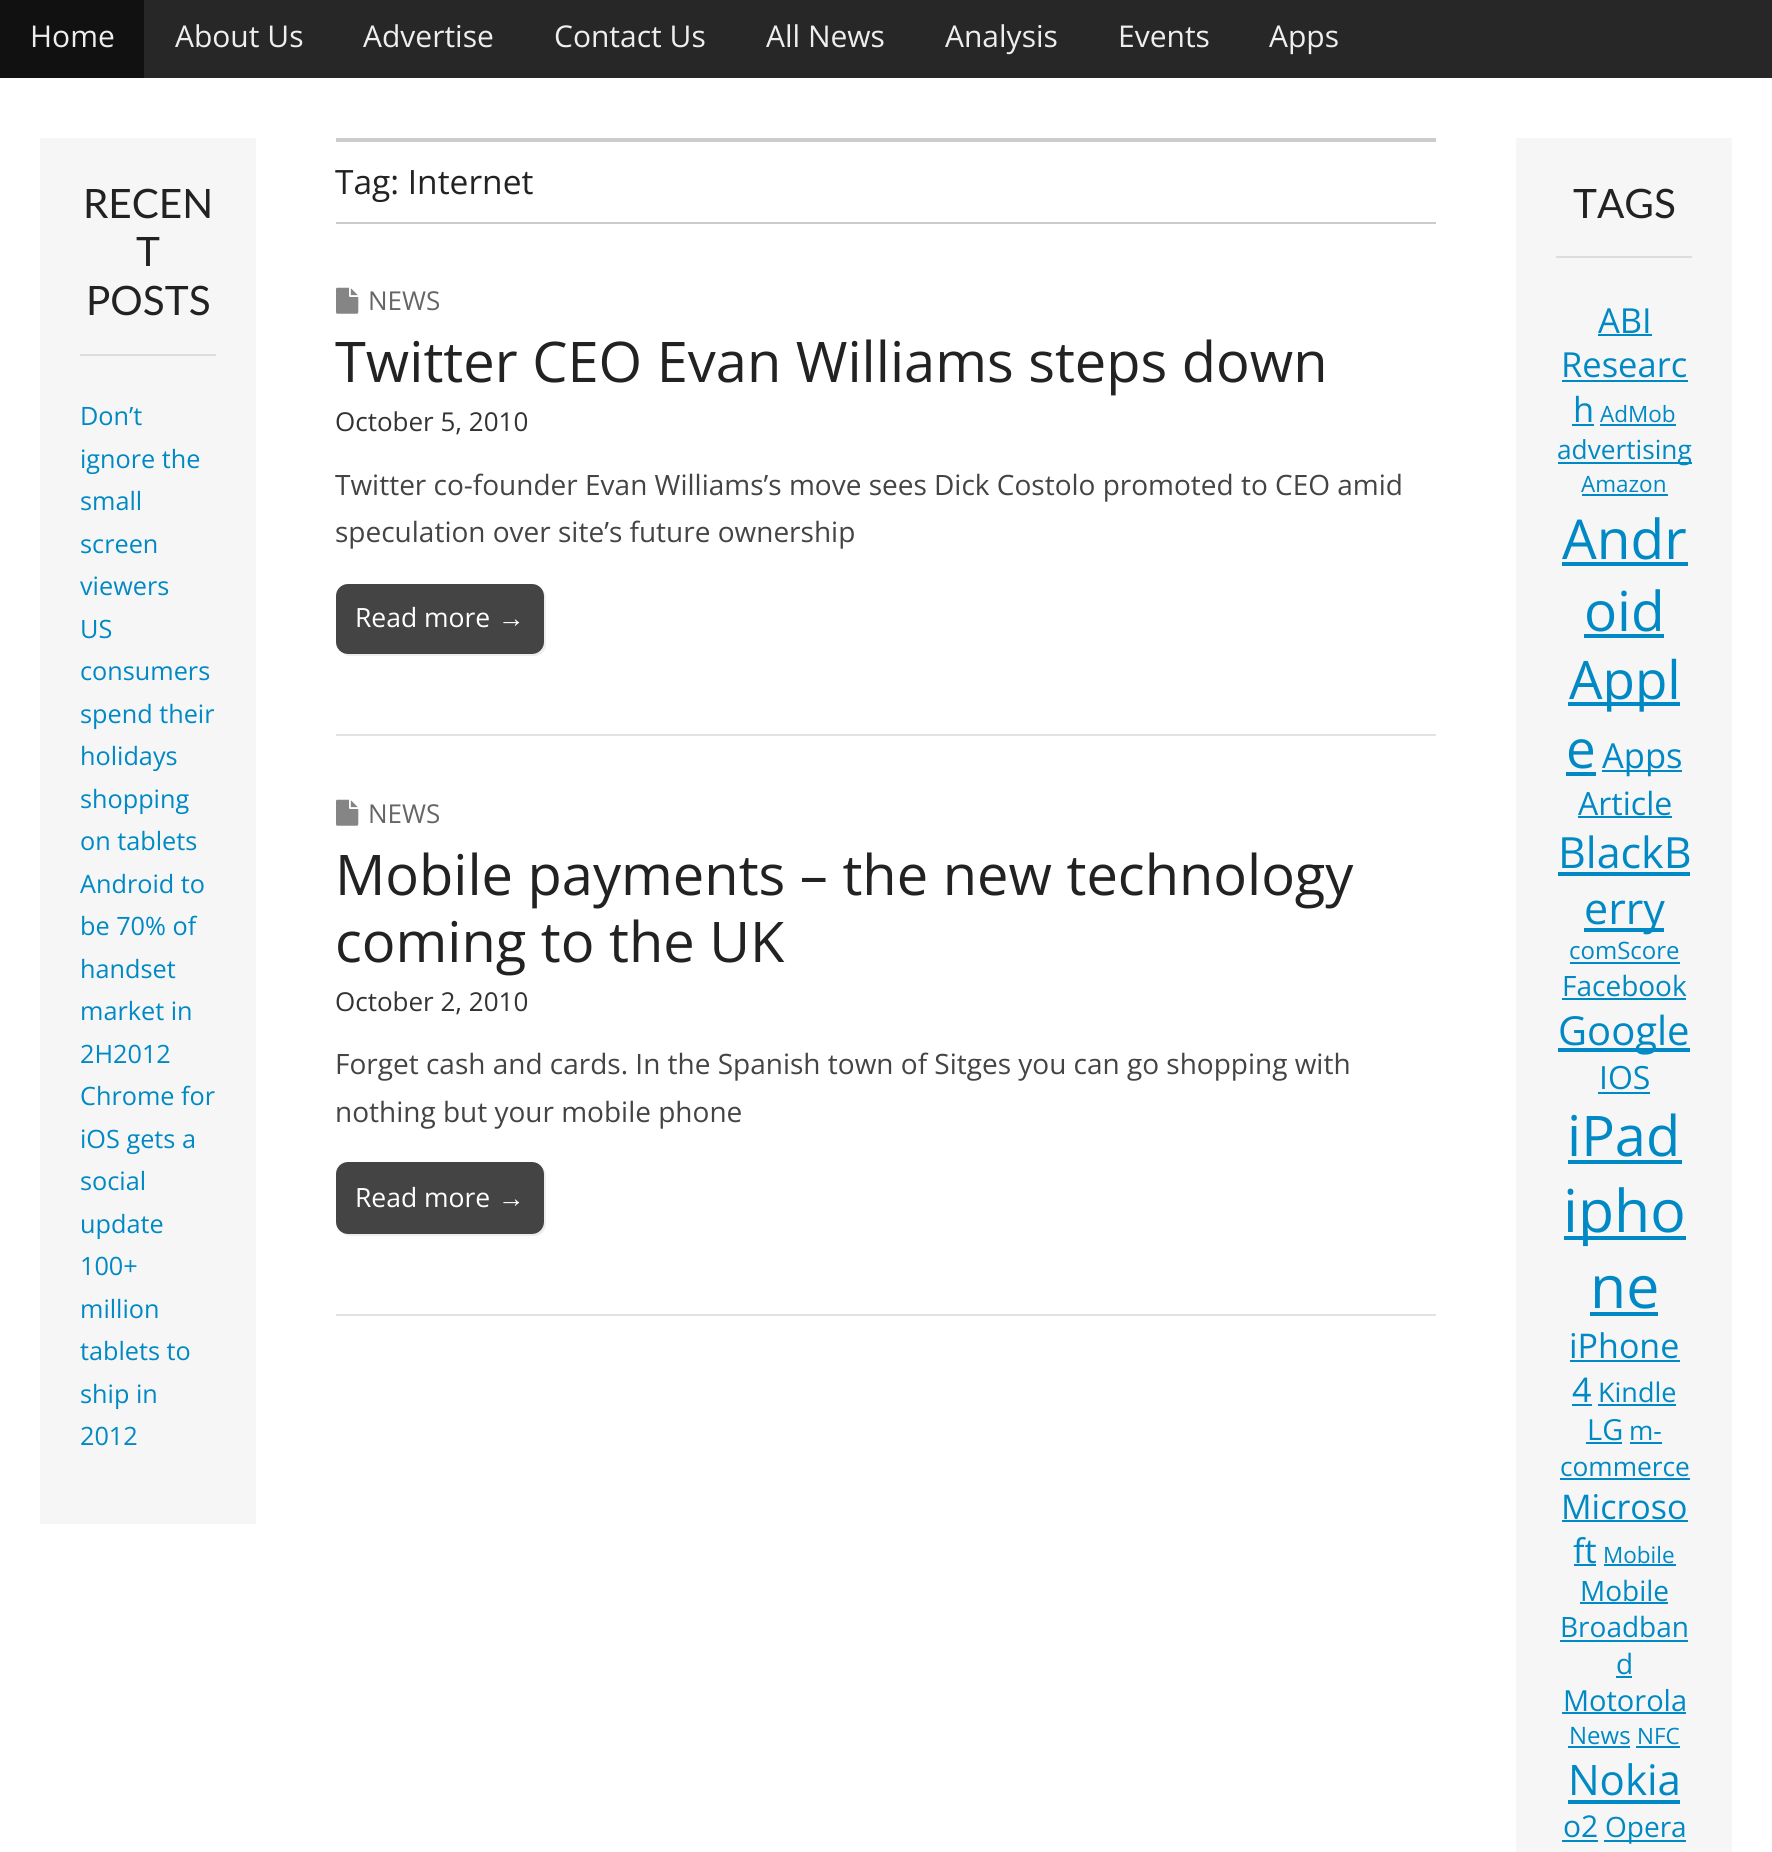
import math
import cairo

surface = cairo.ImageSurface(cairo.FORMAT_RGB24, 1772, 1852)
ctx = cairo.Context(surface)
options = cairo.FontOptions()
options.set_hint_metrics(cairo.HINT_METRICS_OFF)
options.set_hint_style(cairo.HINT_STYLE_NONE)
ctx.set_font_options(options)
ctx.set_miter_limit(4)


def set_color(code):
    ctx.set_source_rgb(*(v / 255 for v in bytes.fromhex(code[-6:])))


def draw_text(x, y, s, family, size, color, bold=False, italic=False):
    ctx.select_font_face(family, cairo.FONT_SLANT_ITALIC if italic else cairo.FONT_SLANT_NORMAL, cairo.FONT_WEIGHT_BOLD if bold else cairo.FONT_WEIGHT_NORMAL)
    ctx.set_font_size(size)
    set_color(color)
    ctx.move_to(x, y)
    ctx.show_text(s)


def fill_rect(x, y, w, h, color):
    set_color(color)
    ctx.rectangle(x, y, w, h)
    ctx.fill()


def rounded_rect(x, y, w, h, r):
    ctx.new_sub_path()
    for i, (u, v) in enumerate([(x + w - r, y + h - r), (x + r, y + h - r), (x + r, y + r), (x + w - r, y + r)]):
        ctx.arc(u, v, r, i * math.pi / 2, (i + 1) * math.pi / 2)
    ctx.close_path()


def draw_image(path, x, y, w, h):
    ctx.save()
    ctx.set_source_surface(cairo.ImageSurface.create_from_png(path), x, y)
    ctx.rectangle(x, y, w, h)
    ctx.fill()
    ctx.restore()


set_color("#ffffff")
ctx.paint()
fill_rect(144, 0, 1628, 78, "#272727")
fill_rect(0, 0, 144, 78, "#111111")
draw_text(30, 47, "Home", "Open Sans", 30, "#eeeeee")
draw_text(175, 47, "About Us", "Open Sans", 30, "#eeeeee")
draw_text(363, 47, "Advertise", "Open Sans", 30, "#eeeeee")
draw_text(554, 47, "Contact Us", "Open Sans", 30, "#eeeeee")
draw_text(766, 47, "All News", "Open Sans", 30, "#eeeeee")
draw_text(945, 47, "Analysis", "Open Sans", 30, "#eeeeee")
draw_text(1118, 47, "Events", "Open Sans", 30, "#eeeeee")
draw_text(1269, 47, "Apps", "Open Sans", 30, "#eeeeee")
fill_rect(40, 138, 216, 1386, "#f6f6f6")
fill_rect(80, 354, 136, 2, "#dddddd")
draw_text(83, 218, "RECEN", "Lato", 40.5, "#222222")
draw_text(136, 266, "T", "Lato", 40.5, "#222222")
draw_text(86, 315, "POSTS", "Lato", 40.5, "#222222")
draw_text(80, 425, "Don’t", "Open Sans", 25.25, "#0089c4")
draw_text(80, 468, "ignore the", "Open Sans", 25.25, "#0089c4")
draw_text(80, 510, "small", "Open Sans", 25.25, "#0089c4")
draw_text(80, 553, "screen", "Open Sans", 25.25, "#0089c4")
draw_text(80, 595, "viewers", "Open Sans", 25.25, "#0089c4")
draw_text(80, 638, "US", "Open Sans", 25.25, "#0089c4")
draw_text(80, 680, "consumers", "Open Sans", 25.25, "#0089c4")
draw_text(80, 723, "spend their", "Open Sans", 25.25, "#0089c4")
draw_text(80, 765, "holidays", "Open Sans", 25.25, "#0089c4")
draw_text(80, 808, "shopping", "Open Sans", 25.25, "#0089c4")
draw_text(80, 850, "on tablets", "Open Sans", 25.25, "#0089c4")
draw_text(80, 893, "Android to", "Open Sans", 25.25, "#0089c4")
draw_text(80, 935, "be 70% of", "Open Sans", 25.25, "#0089c4")
draw_text(80, 978, "handset", "Open Sans", 25.25, "#0089c4")
draw_text(80, 1020, "market in", "Open Sans", 25.25, "#0089c4")
draw_text(80, 1063, "2H2012", "Open Sans", 25.25, "#0089c4")
draw_text(80, 1105, "Chrome for", "Open Sans", 25.25, "#0089c4")
draw_text(80, 1148, "iOS gets a", "Open Sans", 25.25, "#0089c4")
draw_text(80, 1190, "social", "Open Sans", 25.25, "#0089c4")
draw_text(80, 1233, "update", "Open Sans", 25.25, "#0089c4")
draw_text(80, 1275, "100+", "Open Sans", 25.25, "#0089c4")
draw_text(80, 1318, "million", "Open Sans", 25.25, "#0089c4")
draw_text(80, 1360, "tablets to", "Open Sans", 25.25, "#0089c4")
draw_text(80, 1403, "ship in", "Open Sans", 25.25, "#0089c4")
draw_text(80, 1445, "2012", "Open Sans", 25.25, "#0089c4")
fill_rect(336, 138, 1100, 4, "#cccccc")
fill_rect(336, 222, 1100, 2, "#cccccc")
draw_text(335, 194, "Tag: Internet", "Open Sans", 33.5, "#222222")
fill_rect(336, 734, 1100, 2, "#e2e2e2")
draw_image("assets/img1.png", 336, 287, 23, 27)
draw_text(368, 310, "NEWS", "Open Sans", 26, "#666666")
draw_text(335, 382, "Twitter CEO Evan Williams steps down", "Open Sans", 56, "#222222")
draw_text(335, 431, "October 5, 2010", "Open Sans", 26, "#333333")
draw_text(335, 495, "Twitter co-founder Evan Williams’s move sees Dick Costolo promoted to CEO amid", "Open Sans", 28, "#444444")
draw_text(335, 542, "speculation over site’s future ownership", "Open Sans", 28, "#444444")
set_color("#eeeeee")
ctx.new_path()
ctx.move_to(341, 651)
ctx.curve_to(343, 654, 346, 656, 350, 656)
ctx.line_to(534, 656)
ctx.curve_to(541, 656, 546, 651, 546, 644)
ctx.line_to(546, 598)
ctx.curve_to(546, 594, 544, 591, 541, 589)
ctx.curve_to(543, 591, 544, 593, 544, 596)
ctx.line_to(544, 642)
ctx.curve_to(544, 649, 539, 654, 532, 654)
ctx.line_to(348, 654)
ctx.curve_to(345, 654, 343, 653, 341, 651)
ctx.close_path()
ctx.fill()
set_color("#444444")
rounded_rect(336, 584, 208, 70, 12)
ctx.fill()
draw_text(355, 627, "Read more", "Open Sans", 26.5, "#ffffff")
draw_text(498, 627, "→", "Liberation Sans", 26.5, "#ffffff")
fill_rect(336, 1314, 1100, 2, "#e2e2e2")
draw_image("assets/img1.png", 336, 799, 23, 27)
draw_text(368, 823, "NEWS", "Open Sans", 26, "#666666")
draw_text(335, 895, "Mobile payments – the new technology", "Open Sans", 56, "#222222")
draw_text(335, 962, "coming to the UK", "Open Sans", 56, "#222222")
draw_text(335, 1011, "October 2, 2010", "Open Sans", 26, "#333333")
draw_text(335, 1074, "Forget cash and cards. In the Spanish town of Sitges you can go shopping with", "Open Sans", 28, "#444444")
draw_text(335, 1122, "nothing but your mobile phone", "Open Sans", 28, "#444444")
set_color("#eeeeee")
ctx.new_path()
ctx.move_to(341, 1231)
ctx.curve_to(343, 1234, 346, 1236, 350, 1236)
ctx.line_to(534, 1236)
ctx.curve_to(541, 1236, 546, 1231, 546, 1224)
ctx.line_to(546, 1176)
ctx.curve_to(546, 1172, 544, 1169, 541, 1167)
ctx.curve_to(543, 1169, 544, 1171, 544, 1174)
ctx.line_to(544, 1222)
ctx.curve_to(544, 1229, 539, 1234, 532, 1234)
ctx.line_to(348, 1234)
ctx.curve_to(345, 1234, 343, 1233, 341, 1231)
ctx.close_path()
ctx.fill()
set_color("#444444")
rounded_rect(336, 1162, 208, 72, 12)
ctx.fill()
draw_text(355, 1207, "Read more", "Open Sans", 26.5, "#ffffff")
draw_text(498, 1207, "→", "Liberation Sans", 26.5, "#ffffff")
fill_rect(1516, 138, 216, 1714, "#f6f6f6")
fill_rect(1556, 256, 136, 2, "#dddddd")
draw_text(1573, 218, "TAGS", "Lato", 40.5, "#222222")
draw_text(1598, 333, "ABI", "Open Sans", 34.5, "#0089c4")
fill_rect(1598, 334, 54, 2, "#0089c4")
draw_text(1561, 377, "Researc", "Open Sans", 34.5, "#0089c4")
fill_rect(1562, 380, 126, 2, "#0089c4")
draw_text(1573, 422, "h", "Open Sans", 34.5, "#0089c4")
fill_rect(1572, 424, 22, 2, "#0089c4")
draw_text(1600, 422, "AdMob", "Open Sans", 22.5, "#0089c4")
fill_rect(1600, 424, 76, 2, "#0089c4")
fill_rect(1558, 462, 134, 2, "#0089c4")
draw_text(1557, 459, "advertising", "Open Sans", 26.25, "#0089c4")
draw_text(1581, 492, "Amazon", "Open Sans", 22.5, "#0089c4")
fill_rect(1582, 494, 86, 2, "#0089c4")
draw_text(1562, 559, "Andr", "Open Sans", 55, "#0089c4")
fill_rect(1562, 562, 126, 4, "#0089c4")
draw_text(1584, 631, "oid", "Open Sans", 55, "#0089c4")
fill_rect(1584, 634, 80, 4, "#0089c4")
fill_rect(1568, 702, 112, 4, "#0089c4")
draw_text(1569, 699, "Appl", "Open Sans", 53, "#0089c4")
draw_text(1566, 768, "e", "Open Sans", 53, "#0089c4")
fill_rect(1566, 772, 30, 4, "#0089c4")
fill_rect(1602, 770, 80, 2, "#0089c4")
draw_text(1602, 768, "Apps", "Open Sans", 34.5, "#0089c4")
draw_text(1578, 815, "Article", "Open Sans", 32, "#0089c4")
fill_rect(1578, 816, 94, 2, "#0089c4")
draw_text(1558, 868, "BlackB", "Open Sans", 43, "#0089c4")
fill_rect(1558, 872, 132, 4, "#0089c4")
fill_rect(1584, 928, 80, 4, "#0089c4")
draw_text(1584, 924, "erry", "Open Sans", 43, "#0089c4")
draw_text(1569, 959, "comScore", "Open Sans", 24, "#0089c4")
fill_rect(1570, 962, 110, 2, "#0089c4")
draw_text(1562, 996, "Facebook", "Open Sans", 28, "#0089c4")
fill_rect(1562, 998, 124, 2, "#0089c4")
fill_rect(1558, 1048, 132, 4, "#0089c4")
draw_text(1558, 1045, "Google", "Open Sans", 40, "#0089c4")
draw_text(1599, 1089, "IOS", "Open Sans", 32, "#0089c4")
fill_rect(1598, 1092, 52, 2, "#0089c4")
draw_text(1567, 1156, "iPad", "Open Sans", 56, "#0089c4")
fill_rect(1568, 1160, 114, 4, "#0089c4")
fill_rect(1564, 1236, 122, 4, "#0089c4")
draw_text(1563, 1232, "ipho", "Open Sans", 59, "#0089c4")
draw_text(1590, 1308, "ne", "Open Sans", 59, "#0089c4")
fill_rect(1590, 1312, 68, 4, "#0089c4")
draw_text(1569, 1358, "iPhone", "Open Sans", 34, "#0089c4")
fill_rect(1570, 1360, 110, 2, "#0089c4")
draw_text(1572, 1402, "4", "Open Sans", 34, "#0089c4")
fill_rect(1572, 1404, 20, 2, "#0089c4")
draw_text(1598, 1402, "Kindle", "Open Sans", 27, "#0089c4")
fill_rect(1598, 1404, 78, 2, "#0089c4")
draw_text(1587, 1440, "LG", "Open Sans", 29, "#0089c4")
fill_rect(1586, 1442, 36, 2, "#0089c4")
draw_text(1629, 1440, "m-", "Open Sans", 26.25, "#0089c4")
fill_rect(1630, 1442, 32, 2, "#0089c4")
draw_text(1560, 1476, "commerce", "Open Sans", 26.25, "#0089c4")
fill_rect(1560, 1478, 130, 2, "#0089c4")
draw_text(1561, 1519, "Microso", "Open Sans", 34, "#0089c4")
fill_rect(1562, 1520, 126, 2, "#0089c4")
draw_text(1573, 1563, "ft", "Open Sans", 34, "#0089c4")
fill_rect(1574, 1564, 22, 2, "#0089c4")
draw_text(1603, 1563, "Mobile", "Open Sans", 22.5, "#0089c4")
fill_rect(1604, 1564, 72, 2, "#0089c4")
draw_text(1580, 1601, "Mobile", "Open Sans", 28, "#0089c4")
fill_rect(1580, 1602, 88, 2, "#0089c4")
draw_text(1560, 1637, "Broadban", "Open Sans", 28, "#0089c4")
fill_rect(1560, 1640, 128, 2, "#0089c4")
draw_text(1616, 1674, "d", "Open Sans", 28, "#0089c4")
fill_rect(1616, 1676, 16, 2, "#0089c4")
draw_text(1563, 1711, "Motorola", "Open Sans", 29, "#0089c4")
fill_rect(1562, 1712, 124, 2, "#0089c4")
draw_text(1569, 1744, "News", "Open Sans", 24, "#0089c4")
fill_rect(1568, 1746, 62, 2, "#0089c4")
draw_text(1637, 1744, "NFC", "Open Sans", 22.5, "#0089c4")
fill_rect(1636, 1746, 44, 2, "#0089c4")
draw_text(1568, 1795, "Nokia", "Open Sans", 42, "#0089c4")
fill_rect(1568, 1800, 112, 4, "#0089c4")
draw_text(1563, 1837, "o2", "Open Sans", 30, "#0089c4")
fill_rect(1562, 1840, 36, 2, "#0089c4")
fill_rect(1604, 1840, 82, 2, "#0089c4")
draw_text(1605, 1837, "Opera", "Open Sans", 28, "#0089c4")
surface.write_to_png("output.png")
